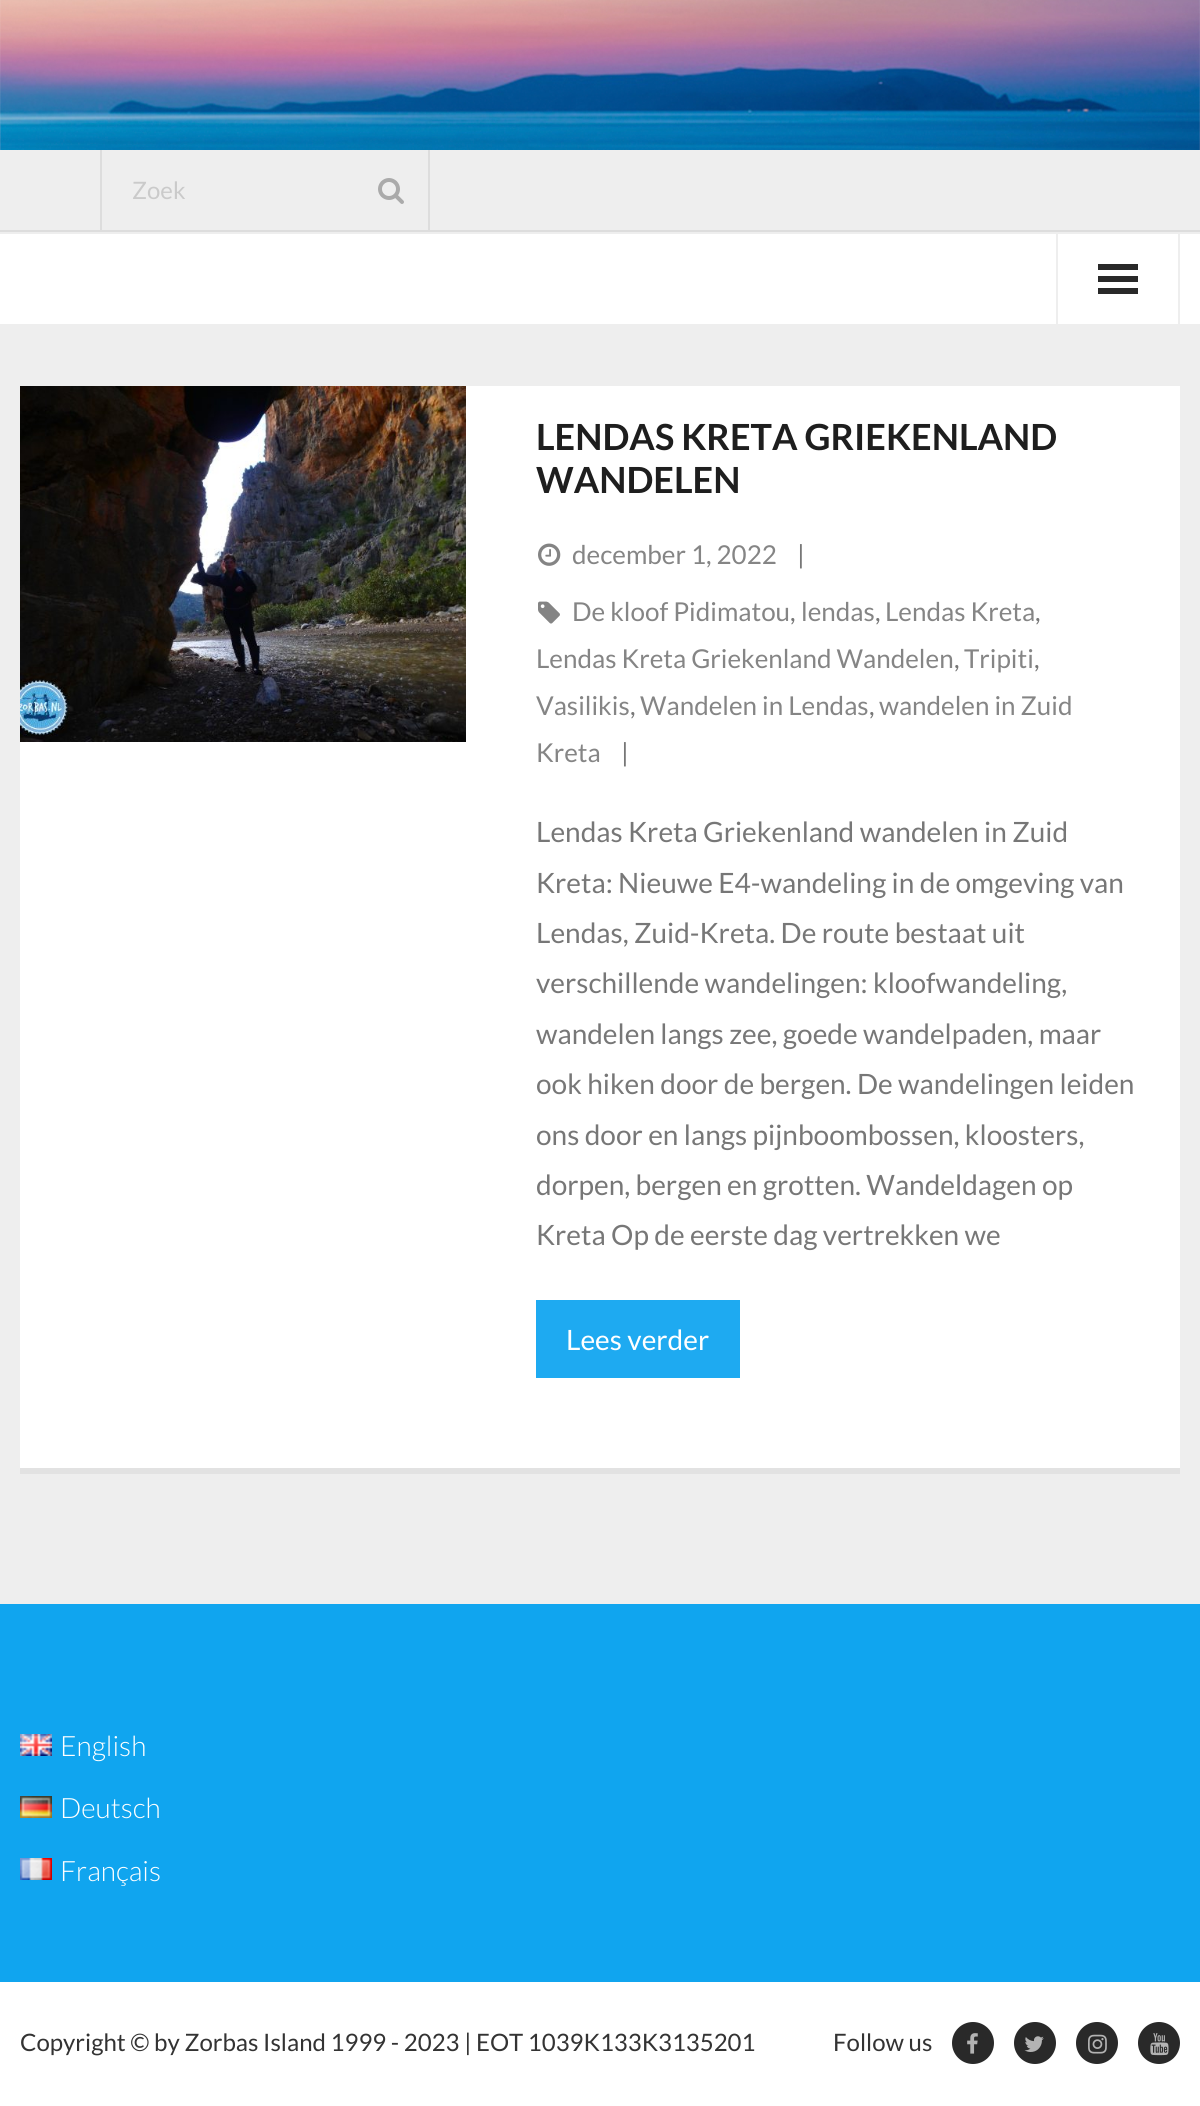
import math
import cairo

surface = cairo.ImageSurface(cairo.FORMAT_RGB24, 1200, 2106)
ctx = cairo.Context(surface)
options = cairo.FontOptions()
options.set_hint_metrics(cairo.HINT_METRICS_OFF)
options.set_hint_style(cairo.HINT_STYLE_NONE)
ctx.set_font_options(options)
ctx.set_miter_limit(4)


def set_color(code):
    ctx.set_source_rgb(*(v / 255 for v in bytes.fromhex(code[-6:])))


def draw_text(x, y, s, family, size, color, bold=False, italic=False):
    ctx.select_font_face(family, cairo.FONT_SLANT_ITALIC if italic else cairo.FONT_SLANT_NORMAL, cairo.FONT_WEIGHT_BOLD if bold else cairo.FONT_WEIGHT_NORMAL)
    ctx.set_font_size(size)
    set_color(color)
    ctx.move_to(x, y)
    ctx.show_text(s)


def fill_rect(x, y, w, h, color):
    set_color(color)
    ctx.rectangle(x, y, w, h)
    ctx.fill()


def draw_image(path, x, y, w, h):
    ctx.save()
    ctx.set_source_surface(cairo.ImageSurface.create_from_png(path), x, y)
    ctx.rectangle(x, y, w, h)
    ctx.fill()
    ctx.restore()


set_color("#ffffff")
ctx.paint()
fill_rect(0, 150, 1200, 1454, "#eeeeee")
draw_image("assets/img1.png", 0, 0, 1200, 150)
fill_rect(0, 230, 1200, 2, "#dddddd")
fill_rect(428, 150, 2, 80, "#dddddd")
fill_rect(100, 150, 2, 80, "#dddddd")
draw_text(132, 199, "Zoek", "Lato", 24, "#cacaca")
draw_image("assets/img2.png", 378, 178, 26, 26)
fill_rect(0, 234, 1200, 90, "#ffffff")
fill_rect(1178, 234, 2, 90, "#eeeeee")
fill_rect(1056, 234, 2, 90, "#eeeeee")
fill_rect(1098, 264, 40, 6, "#292929")
fill_rect(1098, 276, 40, 6, "#292929")
fill_rect(1098, 288, 40, 6, "#292929")
fill_rect(20, 386, 1160, 1082, "#ffffff")
fill_rect(20, 1468, 1160, 6, "#e2e2e2")
draw_image("assets/img3.png", 20, 386, 446, 356)
draw_text(536, 450, "LENDAS KRETA GRIEKENLAND", "Lato", 36, "#1e1e1e", bold=True)
draw_text(536, 493, "WANDELEN", "Lato", 36, "#1e1e1e", bold=True)
draw_image("assets/img4.png", 538, 543, 23, 23)
draw_text(572, 564, "december 1, 2022", "Lato", 26, "#858585")
draw_text(797, 564, "|", "Lato", 26, "#777777")
draw_image("assets/img5.png", 538, 601, 22, 23)
draw_text(572, 621, "De kloof Pidimatou", "Lato", 26, "#858585")
draw_text(790, 621, ",", "Lato", 26, "#777777")
draw_text(801, 621, "lendas", "Lato", 26, "#858585")
draw_text(875, 621, ",", "Lato", 26, "#777777")
draw_text(885, 621, "Lendas Kreta", "Lato", 26, "#858585")
draw_text(1035, 621, ",", "Lato", 26, "#777777")
draw_text(536, 668, "Lendas Kreta Griekenland Wandelen", "Lato", 26, "#858585")
draw_text(954, 668, ",", "Lato", 26, "#777777")
draw_text(964, 668, "Tripiti", "Lato", 26, "#858585")
draw_text(1034, 668, ",", "Lato", 26, "#777777")
draw_text(536, 715, "Vasilikis", "Lato", 26, "#858585")
draw_text(630, 715, ",", "Lato", 26, "#777777")
draw_text(640, 715, "Wandelen in Lendas", "Lato", 26, "#858585")
draw_text(869, 715, ",", "Lato", 26, "#777777")
draw_text(879, 715, "wandelen in Zuid", "Lato", 26, "#858585")
draw_text(536, 762, "Kreta", "Lato", 26, "#858585")
draw_text(621, 762, "|", "Lato", 26, "#777777")
draw_text(536, 842, "Lendas Kreta Griekenland wandelen in Zuid", "Lato", 28, "#777777")
draw_text(536, 893, "Kreta: Nieuwe E4-wandeling in de omgeving van", "Lato", 28, "#777777")
draw_text(536, 943, "Lendas, Zuid-Kreta. De route bestaat uit", "Lato", 28, "#777777")
draw_text(536, 993, "verschillende wandelingen: kloofwandeling,", "Lato", 28, "#777777")
draw_text(536, 1044, "wandelen langs zee, goede wandelpaden, maar", "Lato", 28, "#777777")
draw_text(536, 1094, "ook hiken door de bergen. De wandelingen leiden", "Lato", 28, "#777777")
draw_text(536, 1145, "ons door en langs pijnboombossen, kloosters,", "Lato", 28, "#777777")
draw_text(536, 1195, "dorpen, bergen en grotten. Wandeldagen op", "Lato", 28, "#777777")
draw_text(536, 1245, "Kreta Op de eerste dag vertrekken we", "Lato", 28, "#777777")
fill_rect(536, 1300, 204, 78, "#1eaaf1")
draw_text(566, 1350, "Lees verder", "Lato", 28, "#ffffff")
fill_rect(0, 1604, 1200, 378, "#10a5ef")
draw_image("assets/img6.png", 20, 1734, 32, 22)
draw_text(60, 1756, "English", "Lato Light", 28, "#ffffff")
draw_image("assets/img7.png", 20, 1796, 32, 22)
draw_text(60, 1818, "Deutsch", "Lato Light", 28, "#ffffff")
draw_image("assets/img8.png", 20, 1858, 32, 22)
draw_text(60, 1881, "Français", "Lato Light", 28, "#ffffff")
draw_text(20, 2051, "Copyright © by Zorbas Island 1999 - 2023 | EOT 1039K133K3135201", "Lato", 24, "#333333")
draw_text(833, 2051, "Follow us", "Lato", 24, "#333333")
set_color("#292929")
ctx.new_path()
ctx.arc(973, 2043, 21, 0, 2 * math.pi)
ctx.fill()
draw_image("assets/img9.png", 967, 2033, 11, 21)
ctx.arc(1035, 2043, 21, 0, 2 * math.pi)
ctx.fill()
draw_image("assets/img10.png", 1024, 2036, 20, 16)
ctx.arc(1097, 2043, 21, 0, 2 * math.pi)
ctx.fill()
draw_image("assets/img11.png", 1088, 2034, 19, 20)
ctx.arc(1159, 2043, 21, 0, 2 * math.pi)
ctx.fill()
draw_image("assets/img12.png", 1150, 2033, 19, 23)
surface.write_to_png("output.png")
